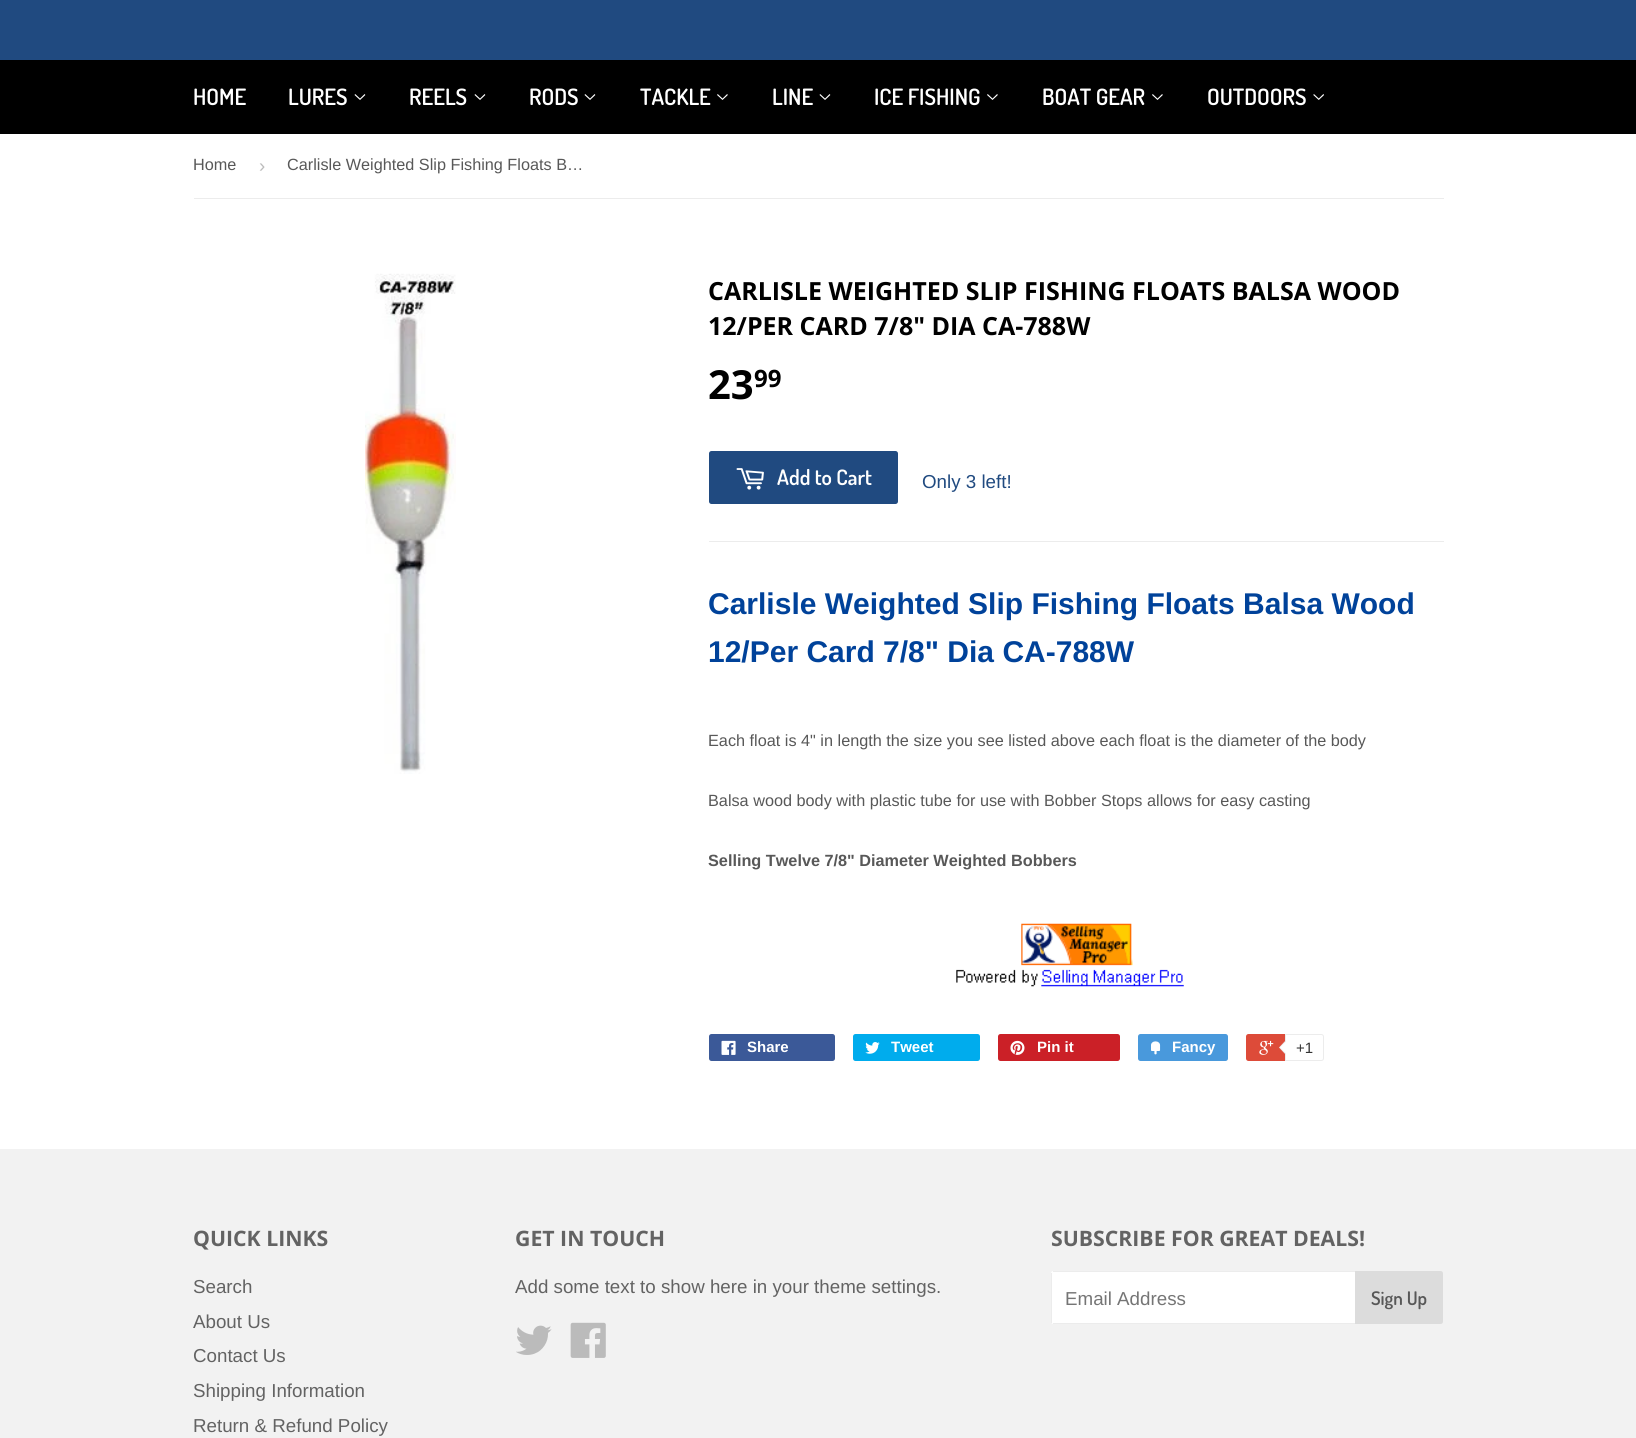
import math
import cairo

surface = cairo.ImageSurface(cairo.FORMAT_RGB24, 1636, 1438)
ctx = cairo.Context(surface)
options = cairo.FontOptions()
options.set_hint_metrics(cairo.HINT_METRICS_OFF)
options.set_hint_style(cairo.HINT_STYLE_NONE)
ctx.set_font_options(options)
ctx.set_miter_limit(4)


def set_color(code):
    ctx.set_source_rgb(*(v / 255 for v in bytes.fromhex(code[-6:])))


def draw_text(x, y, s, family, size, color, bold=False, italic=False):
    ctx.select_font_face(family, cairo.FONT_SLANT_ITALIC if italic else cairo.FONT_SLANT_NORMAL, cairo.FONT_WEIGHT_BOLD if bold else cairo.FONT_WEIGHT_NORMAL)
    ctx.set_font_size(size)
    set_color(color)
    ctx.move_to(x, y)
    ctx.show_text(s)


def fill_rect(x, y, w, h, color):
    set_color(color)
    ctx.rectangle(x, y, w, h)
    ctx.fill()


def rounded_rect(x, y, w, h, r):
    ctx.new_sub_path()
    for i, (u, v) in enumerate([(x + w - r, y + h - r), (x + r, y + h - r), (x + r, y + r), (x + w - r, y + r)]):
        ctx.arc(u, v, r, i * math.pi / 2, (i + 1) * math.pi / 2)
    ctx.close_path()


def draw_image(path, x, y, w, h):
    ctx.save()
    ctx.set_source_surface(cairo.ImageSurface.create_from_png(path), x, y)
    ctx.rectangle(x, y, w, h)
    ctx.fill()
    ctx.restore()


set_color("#ffffff")
ctx.paint()
fill_rect(0, 0, 1636, 60, "#204a80")
fill_rect(0, 60, 1636, 74, "#000000")
draw_text(193, 105, "HOME", "Dosis SemiBold", 22.5, "#ffffff")
draw_text(288, 105, "LURES", "Dosis SemiBold", 22.5, "#ffffff")
draw_image("assets/img1.png", 354, 94, 12, 6)
draw_text(409, 105, "REELS", "Dosis SemiBold", 22.5, "#ffffff")
draw_image("assets/img1.png", 474, 94, 12, 6)
draw_text(529, 105, "RODS", "Dosis SemiBold", 22.5, "#ffffff")
draw_image("assets/img1.png", 584, 94, 12, 6)
draw_text(640, 105, "TACKLE", "Dosis SemiBold", 22.5, "#ffffff")
draw_image("assets/img2.png", 717, 94, 11, 6)
draw_text(772, 105, "LINE", "Dosis SemiBold", 22.5, "#ffffff")
draw_image("assets/img1.png", 819, 94, 12, 6)
draw_text(874, 105, "ICE FISHING", "Dosis SemiBold", 22.5, "#ffffff")
draw_image("assets/img2.png", 987, 94, 11, 6)
draw_text(1042, 105, "BOAT GEAR", "Dosis SemiBold", 22.5, "#ffffff")
draw_image("assets/img2.png", 1152, 94, 11, 6)
draw_text(1207, 105, "OUTDOORS", "Dosis SemiBold", 22.5, "#ffffff")
draw_image("assets/img3.png", 1313, 94, 11, 6)
fill_rect(194, 198, 1250, 1, "#ececec")
draw_text(193, 170, "Home", "Liberation Sans", 16.25, "#585858")
draw_text(259, 172, "›", "Liberation Sans", 18.75, "#bbbbbb")
draw_text(287, 170, "Carlisle Weighted Slip Fishing Floats B…", "Liberation Sans", 16.25, "#585858")
draw_image("assets/img4.png", 365, 273, 91, 501)
draw_text(708, 300, "CARLISLE WEIGHTED SLIP FISHING FLOATS BALSA WOOD", "Open Sans", 25, "#000000", bold=True)
draw_text(708, 335, "12/PER CARD 7/8\" DIA CA-788W", "Open Sans", 25, "#000000", bold=True)
draw_text(708, 399, "23", "Open Sans", 40, "#000000", bold=True)
draw_text(754, 387, "99", "Open Sans", 24, "#000000", bold=True)
set_color("#204a80")
rounded_rect(709, 451, 189, 53, 2.5)
ctx.fill()
draw_image("assets/img5.png", 736, 468, 28, 22)
draw_text(777, 485, "Add to Cart", "Dosis SemiBold", 21.25, "#ffffff")
draw_text(922, 488, "Only 3 left!", "Liberation Sans", 18.75, "#204a80")
fill_rect(709, 541, 735, 1, "#ececec")
draw_text(708, 614, "Carlisle Weighted Slip Fishing Floats Balsa Wood", "Liberation Sans", 30, "#00429a", bold=True)
draw_text(708, 662, "12/Per Card 7/8\" Dia CA-788W", "Liberation Sans", 30, "#00429a", bold=True)
draw_text(708, 746, "Each float is 4\" in length the size you see listed above each float is the diameter of the body", "Liberation Sans", 16.25, "#585858")
draw_text(708, 806, "Balsa wood body with plastic tube for use with Bobber Stops allows for easy casting", "Liberation Sans", 16.25, "#585858")
draw_text(708, 866, "Selling Twelve 7/8\" Diameter Weighted Bobbers", "Liberation Sans", 16.25, "#585858", bold=True)
draw_image("assets/img6.png", 956, 923, 228, 64)
set_color("#3b5998")
rounded_rect(709, 1034, 126, 27, 2.5)
ctx.fill()
draw_image("assets/img7.png", 721, 1040, 15, 15)
draw_text(747, 1052, "Share", "Liberation Sans", 15, "#ffffff", bold=True)
set_color("#00aced")
rounded_rect(853, 1034, 127, 27, 2.5)
ctx.fill()
draw_image("assets/img8.png", 865, 1042, 15, 12)
draw_text(891, 1052, "Tweet", "Liberation Sans", 15, "#ffffff", bold=True)
set_color("#cb2027")
rounded_rect(998, 1034, 122, 27, 2.5)
ctx.fill()
draw_image("assets/img9.png", 1010, 1040, 15, 15)
draw_text(1037, 1052, "Pin it", "Liberation Sans", 15, "#ffffff", bold=True)
set_color("#4999dc")
rounded_rect(1138, 1034, 90, 27, 2.5)
ctx.fill()
draw_image("assets/img10.png", 1151, 1041, 10, 14)
draw_text(1172, 1052, "Fancy", "Liberation Sans", 15, "#ffffff", bold=True)
set_color("#dd4b39")
rounded_rect(1246, 1034, 75, 27, 2.5)
ctx.fill()
draw_image("assets/img11.png", 1259, 1040, 15, 15)
set_color("#ffffff")
ctx.new_path()
ctx.move_to(1285.5, 1034.5)
ctx.line_to(1321.5, 1034.5)
ctx.curve_to(1322.5, 1034.5, 1323.5, 1035.5, 1323.5, 1036.5)
ctx.line_to(1323.5, 1058.5)
ctx.curve_to(1323.5, 1059.5, 1322.5, 1060.5, 1321.5, 1060.5)
ctx.line_to(1285.5, 1060.5)
ctx.close_path()
ctx.fill_preserve()
set_color("#ececec")
ctx.set_line_width(1)
ctx.stroke()
ctx.new_path()
ctx.move_to(1286, 1040)
ctx.line_to(1286, 1055)
ctx.line_to(1279, 1047.5)
ctx.close_path()
ctx.fill()
set_color("#ffffff")
ctx.new_path()
ctx.move_to(1287.5, 1040)
ctx.line_to(1287.5, 1055)
ctx.line_to(1280, 1047.5)
ctx.close_path()
ctx.fill()
draw_text(1296, 1053, "+1", "Liberation Sans", 15, "#333333")
fill_rect(0, 1149, 1636, 289, "#f2f2f2")
draw_text(193, 1246, "QUICK LINKS", "Open Sans", 21.25, "#636363", bold=True)
draw_text(193, 1293, "Search", "Liberation Sans", 18.75, "#636363")
draw_text(193, 1328, "About Us", "Liberation Sans", 18.75, "#636363")
draw_text(193, 1362, "Contact Us", "Liberation Sans", 18.75, "#636363")
draw_text(193, 1397, "Shipping Information", "Liberation Sans", 18.75, "#636363")
draw_text(193, 1432, "Return & Refund Policy", "Liberation Sans", 18.75, "#636363")
draw_text(515, 1246, "GET IN TOUCH", "Open Sans", 21.25, "#636363", bold=True)
draw_text(515, 1293, "Add some text to show here in your theme settings.", "Liberation Sans", 18.75, "#636363")
draw_image("assets/img12.png", 516, 1325, 36, 30)
draw_image("assets/img13.png", 570, 1322, 36, 36)
draw_text(1051, 1246, "SUBSCRIBE FOR GREAT DEALS!", "Open Sans", 21.25, "#636363", bold=True)
set_color("#ffffff")
ctx.new_path()
ctx.move_to(1053.5, 1271)
ctx.line_to(1355, 1271)
ctx.line_to(1355, 1324)
ctx.line_to(1053.5, 1324)
ctx.curve_to(1052, 1324, 1051, 1323, 1051, 1321.5)
ctx.line_to(1051, 1273.5)
ctx.curve_to(1051, 1272, 1052, 1271, 1053.5, 1271)
ctx.close_path()
ctx.fill()
fill_rect(1053, 1271, 302, 1, "#ececec")
fill_rect(1053, 1323, 302, 1, "#ececec")
fill_rect(1051, 1273, 1, 50, "#ececec")
draw_text(1065, 1305, "Email Address", "Liberation Sans", 18.75, "#757575")
set_color("#dcdcdc")
ctx.new_path()
ctx.move_to(1355, 1271)
ctx.line_to(1440.5, 1271)
ctx.curve_to(1442, 1271, 1443, 1272, 1443, 1273.5)
ctx.line_to(1443, 1321.5)
ctx.curve_to(1443, 1323, 1442, 1324, 1440.5, 1324)
ctx.line_to(1355, 1324)
ctx.close_path()
ctx.fill()
draw_text(1371, 1305, "Sign Up", "Dosis SemiBold", 18.75, "#585858")
surface.write_to_png("output.png")
